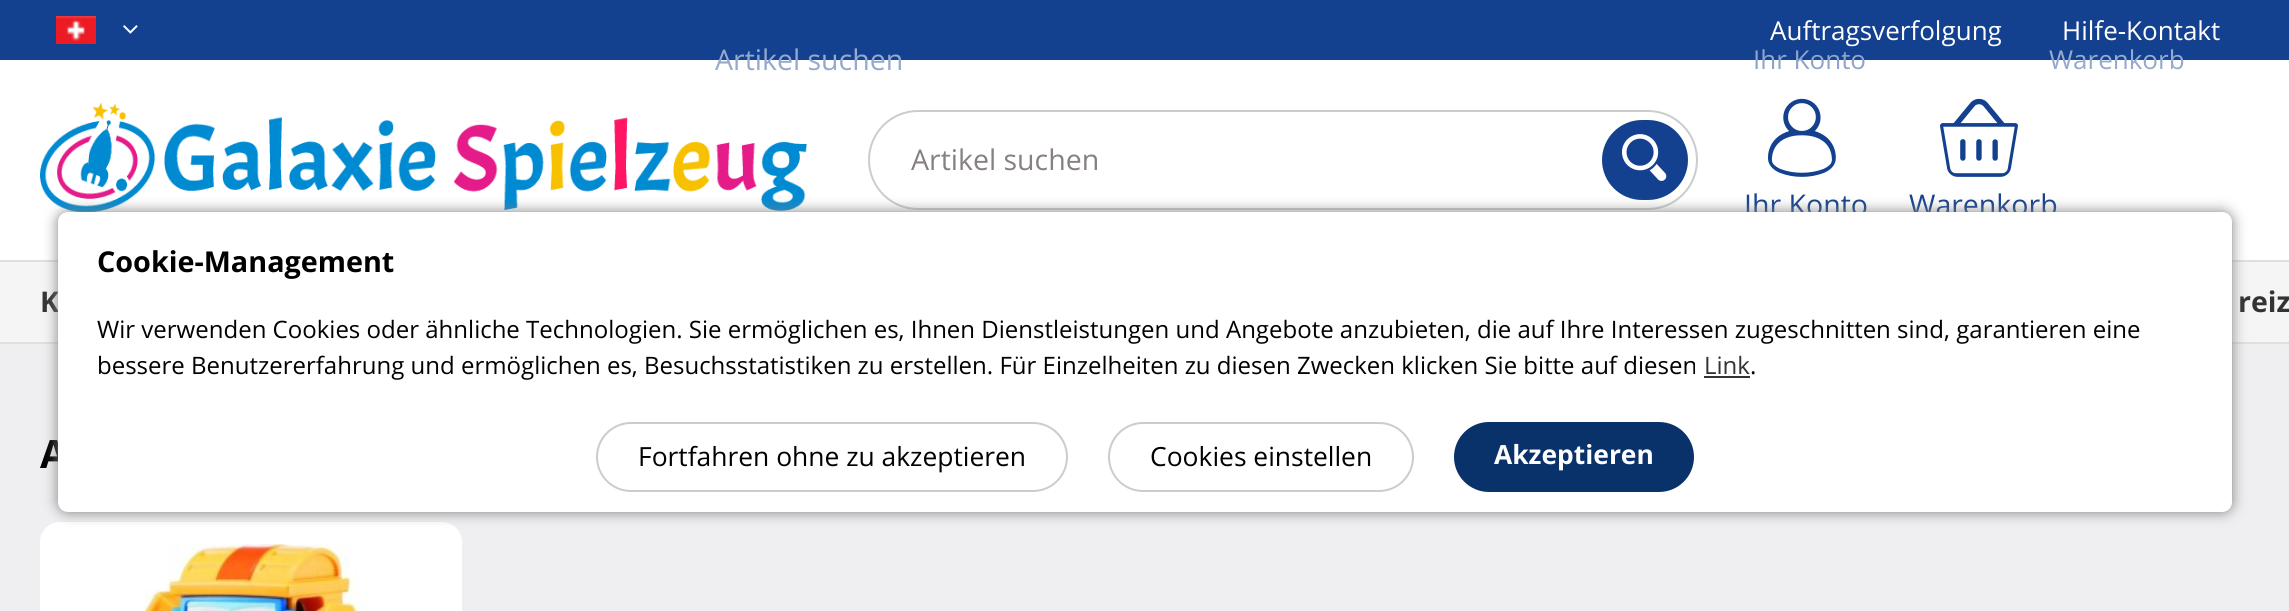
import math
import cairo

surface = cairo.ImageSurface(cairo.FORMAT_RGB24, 2289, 611)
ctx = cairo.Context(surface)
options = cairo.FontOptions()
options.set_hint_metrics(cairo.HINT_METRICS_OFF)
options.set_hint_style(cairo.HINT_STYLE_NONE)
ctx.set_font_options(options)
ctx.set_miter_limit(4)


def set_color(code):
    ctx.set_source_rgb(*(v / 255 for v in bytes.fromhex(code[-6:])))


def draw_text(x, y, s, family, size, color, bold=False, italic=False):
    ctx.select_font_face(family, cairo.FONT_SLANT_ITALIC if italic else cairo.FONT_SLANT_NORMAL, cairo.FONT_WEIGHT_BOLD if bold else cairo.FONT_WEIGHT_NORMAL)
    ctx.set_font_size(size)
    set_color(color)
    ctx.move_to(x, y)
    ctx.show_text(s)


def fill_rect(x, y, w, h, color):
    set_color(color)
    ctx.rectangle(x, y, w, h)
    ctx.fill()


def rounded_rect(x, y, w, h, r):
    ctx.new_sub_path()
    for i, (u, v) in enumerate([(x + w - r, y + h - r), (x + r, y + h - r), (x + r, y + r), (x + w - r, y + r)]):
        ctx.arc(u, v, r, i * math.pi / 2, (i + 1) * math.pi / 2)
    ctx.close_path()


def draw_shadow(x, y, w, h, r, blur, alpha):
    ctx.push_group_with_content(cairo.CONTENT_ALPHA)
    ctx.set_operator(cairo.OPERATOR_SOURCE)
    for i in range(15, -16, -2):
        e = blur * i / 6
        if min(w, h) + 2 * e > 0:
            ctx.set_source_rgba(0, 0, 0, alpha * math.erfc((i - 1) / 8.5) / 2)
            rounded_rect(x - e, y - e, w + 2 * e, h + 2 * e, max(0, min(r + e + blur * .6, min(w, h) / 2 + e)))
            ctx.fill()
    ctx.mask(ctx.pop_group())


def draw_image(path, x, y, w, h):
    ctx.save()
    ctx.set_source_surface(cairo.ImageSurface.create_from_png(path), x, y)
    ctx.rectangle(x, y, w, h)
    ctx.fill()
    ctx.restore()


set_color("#ffffff")
ctx.paint()
fill_rect(0, 0, 2289, 60, "#13418f")
draw_image("assets/img1.png", 56, 16, 40, 28)
draw_image("assets/img2.png", 123, 25, 15, 9)
draw_text(1770, 40, "Auftragsverfolgung", "Open Sans", 26, "#ffffff")
draw_text(2062, 40, "Hilfe-Kontakt", "Open Sans", 26, "#ffffff")
draw_image("assets/img3.png", 40, 102, 768, 110)
rounded_rect(869, 111, 828, 98, 49)
set_color("#cccccc")
ctx.stroke()
draw_text(911, 170, "Artikel suchen", "Open Sans", 28.5, "#868080")
set_color("#13418f")
rounded_rect(1602, 120, 86, 80, 40)
ctx.fill()
draw_image("assets/img4.png", 1622, 134, 45, 47)
draw_image("assets/img5.png", 1768, 98, 68, 79)
draw_text(1744, 215, "Ihr Konto", "Open Sans", 28.5, "#13418f")
draw_image("assets/img6.png", 1940, 98, 78, 79)
draw_text(1909, 215, "Warenkorb", "Open Sans", 28.5, "#13418f")
fill_rect(0, 262, 2289, 80, "#f5f5f5")
fill_rect(0, 260, 2289, 2, "#e0dfdf")
fill_rect(0, 342, 2289, 2, "#e0dfdf")
draw_text(40, 312, "K", "Open Sans", 28.5, "#333333", bold=True)
draw_text(2238, 312, "reiz", "Open Sans", 28.5, "#333333", bold=True)
fill_rect(0, 344, 2289, 267, "#efeef1")
draw_text(40, 468, "A", "Open Sans", 39, "#000000", bold=True)
set_color("#ffffff")
rounded_rect(40, 522, 422, 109, 20)
ctx.fill()
draw_image("assets/img7.png", 142, 544, 223, 67)
draw_text(715, 70, "Artikel suchen", "Open Sans", 28.5, "#95aacd")
draw_text(1753, 69, "Ihr Konto", "Open Sans", 26, "#8ea4c9")
draw_text(2049, 69, "Warenkorb", "Open Sans", 26, "#95aacd")
set_color("#808080")
draw_shadow(58, 212, 2174, 300, 10, 7, 1)
set_color("#ffffff")
rounded_rect(58, 212, 2174, 300, 10)
ctx.fill()
draw_text(97, 272, "Cookie-Management", "Open Sans", 28.75, "#000000", bold=True)
draw_text(97, 338, "Wir verwenden Cookies oder ähnliche Technologien. Sie ermöglichen es, Ihnen Dienstleistungen und Angebote anzubieten, die auf Ihre Interessen zugeschnitten sind, garantieren eine", "Open Sans", 24, "#000000")
draw_text(97, 374, "bessere Benutzererfahrung und ermöglichen es, Besuchsstatistiken zu erstellen. Für Einzelheiten zu diesen Zwecken klicken Sie bitte auf diesen", "Open Sans", 24, "#000000")
draw_text(1704, 374, "Link", "Open Sans", 24, "#333333")
fill_rect(1704, 376, 46, 2, "#333333")
draw_text(1750, 374, ".", "Open Sans", 24, "#000000")
rounded_rect(597, 423, 470, 68, 34)
set_color("#cccccc")
ctx.stroke()
draw_text(638, 466, "Fortfahren ohne zu akzeptieren", "Open Sans", 26.4, "#000000")
rounded_rect(1109, 423, 304, 68, 34)
set_color("#cccccc")
ctx.stroke()
draw_text(1150, 466, "Cookies einstellen", "Open Sans", 26.4, "#000000")
set_color("#09326b")
rounded_rect(1454, 422, 240, 70, 35)
ctx.fill()
draw_text(1494, 464, "Akzeptieren", "Open Sans", 26.4, "#ffffff", bold=True)
surface.write_to_png("output.png")
